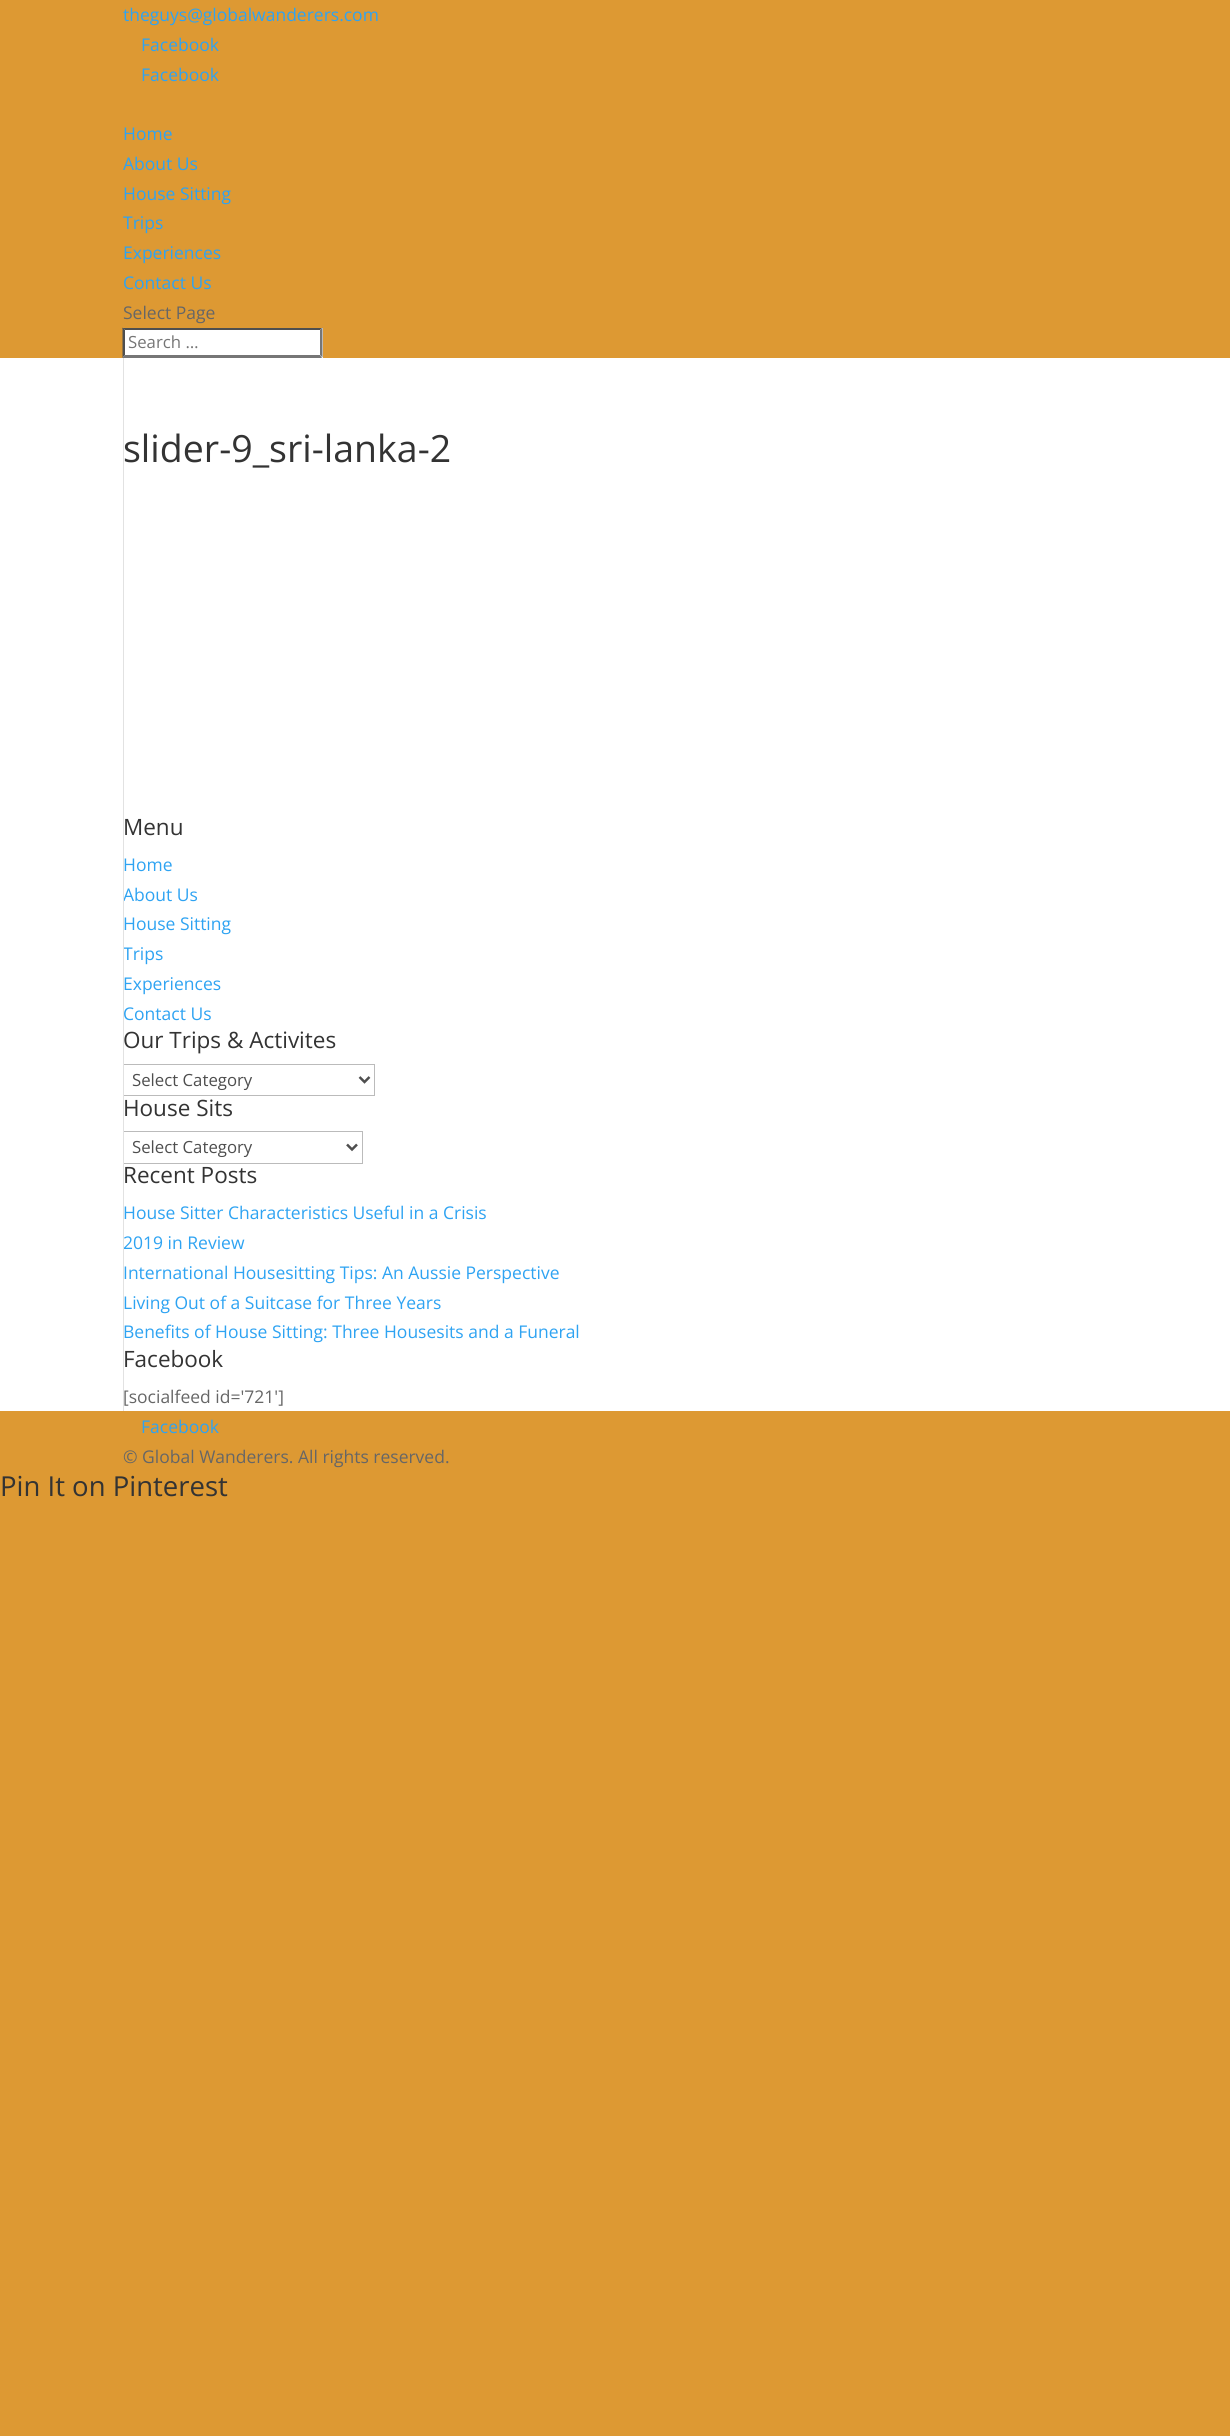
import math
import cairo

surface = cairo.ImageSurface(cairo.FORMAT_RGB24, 1230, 2436)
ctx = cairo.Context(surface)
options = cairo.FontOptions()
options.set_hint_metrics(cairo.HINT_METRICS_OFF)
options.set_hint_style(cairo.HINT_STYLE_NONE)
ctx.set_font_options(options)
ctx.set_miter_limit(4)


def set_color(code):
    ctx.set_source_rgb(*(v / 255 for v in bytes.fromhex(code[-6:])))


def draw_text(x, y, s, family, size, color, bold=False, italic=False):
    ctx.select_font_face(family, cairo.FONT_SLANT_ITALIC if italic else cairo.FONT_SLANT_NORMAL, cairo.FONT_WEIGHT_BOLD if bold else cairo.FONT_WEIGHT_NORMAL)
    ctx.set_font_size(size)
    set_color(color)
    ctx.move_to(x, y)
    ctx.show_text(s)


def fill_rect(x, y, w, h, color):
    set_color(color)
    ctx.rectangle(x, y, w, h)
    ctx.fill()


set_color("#dd9933")
ctx.paint()
draw_text(123, 21, "theguys@globalwanderers.com", "Open Sans", 17.5, "#2ea3f2")
draw_text(141, 51, "Facebook", "Open Sans", 17.5, "#2ea3f2")
draw_text(141, 81, "Facebook", "Open Sans", 17.5, "#2ea3f2")
draw_text(123, 140, "Home", "Open Sans", 17.5, "#2ea3f2")
draw_text(123, 170, "About Us", "Open Sans", 17.5, "#2ea3f2")
draw_text(123, 200, "House Sitting", "Open Sans", 17.5, "#2ea3f2")
draw_text(123, 229, "Trips", "Open Sans", 17.5, "#2ea3f2")
draw_text(123, 259, "Experiences", "Open Sans", 17.5, "#2ea3f2")
draw_text(123, 289, "Contact Us", "Open Sans", 17.5, "#2ea3f2")
draw_text(123, 319, "Select Page", "Open Sans", 17.5, "#666666")
fill_rect(123, 328, 200, 30, "#ffffff")
set_color("#4f4f4f")
ctx.new_path()
ctx.move_to(122, 328)
ctx.line_to(322, 328)
ctx.line_to(320, 330)
ctx.line_to(125, 330)
ctx.close_path()
ctx.fill()
set_color("#767676")
ctx.new_path()
ctx.move_to(322.5, 327.5)
ctx.line_to(322.5, 357.5)
ctx.line_to(320, 355)
ctx.line_to(320, 330)
ctx.close_path()
ctx.fill()
ctx.new_path()
ctx.move_to(322, 358)
ctx.line_to(122, 358)
ctx.line_to(125, 355)
ctx.line_to(320, 355)
ctx.close_path()
ctx.fill()
set_color("#4f4f4f")
ctx.new_path()
ctx.move_to(122.5, 357.5)
ctx.line_to(122.5, 327.5)
ctx.line_to(125, 330)
ctx.line_to(125, 355)
ctx.close_path()
ctx.fill()
draw_text(128, 348, "Search …", "Open Sans", 16.75, "#757575")
fill_rect(0, 358, 1230, 1053, "#ffffff")
draw_text(123, 901, "About Us", "Open Sans", 17.5, "#2ea3f2")
draw_text(123, 960, "Trips", "Open Sans", 17.5, "#2ea3f2")
ctx.rectangle(123.5, 1064.5, 251, 31)
set_color("#bbbbbb")
ctx.set_line_width(1)
ctx.stroke()
ctx.rectangle(123.5, 1131.5, 239, 32)
ctx.stroke()
draw_text(123, 1249, "2019 in Review", "Open Sans", 17.5, "#2ea3f2")
fill_rect(123, 358, 1, 1053, "#e2e2e2")
draw_text(123, 462, "slider-9_sri-lanka-2", "Open Sans", 37.5, "#333333")
draw_text(123, 835, "Menu", "Open Sans", 22.5, "#333333")
draw_text(123, 871, "Home", "Open Sans", 17.5, "#2ea3f2")
draw_text(123, 930, "House Sitting", "Open Sans", 17.5, "#2ea3f2")
draw_text(123, 990, "Experiences", "Open Sans", 17.5, "#2ea3f2")
draw_text(123, 1020, "Contact Us", "Open Sans", 17.5, "#2ea3f2")
draw_text(123, 1048, "Our Trips & Activites", "Open Sans", 22.5, "#333333")
ctx.new_path()
ctx.move_to(359.5, 1077)
ctx.line_to(364.5, 1082)
ctx.line_to(369.5, 1077)
set_color("#4e4e4e")
ctx.set_line_width(2.5)
ctx.stroke()
draw_text(132, 1086, "Select Category", "Open Sans", 16.75, "#4e4e4e")
draw_text(123, 1116, "House Sits", "Open Sans", 22.5, "#333333")
ctx.new_path()
ctx.move_to(347, 1144.5)
ctx.line_to(352, 1149.5)
ctx.line_to(357, 1144.5)
set_color("#4e4e4e")
ctx.stroke()
draw_text(132, 1153, "Select Category", "Open Sans", 16.75, "#4e4e4e")
draw_text(123, 1183, "Recent Posts", "Open Sans", 22.5, "#333333")
draw_text(123, 1219, "House Sitter Characteristics Useful in a Crisis", "Open Sans", 17.5, "#2ea3f2")
draw_text(123, 1279, "International Housesitting Tips: An Aussie Perspective", "Open Sans", 17.5, "#2ea3f2")
draw_text(123, 1309, "Living Out of a Suitcase for Three Years", "Open Sans", 17.5, "#2ea3f2")
draw_text(123, 1338, "Benefits of House Sitting: Three Housesits and a Funeral", "Open Sans", 17.5, "#2ea3f2")
draw_text(123, 1367, "Facebook", "Open Sans", 22.5, "#333333")
draw_text(123, 1403, "[socialfeed id='721']", "Open Sans", 17.5, "#666666")
draw_text(141, 1433, "Facebook", "Open Sans", 17.5, "#2ea3f2")
draw_text(123, 1463, "© Global Wanderers. All rights reserved.", "Open Sans", 17.5, "#666666")
draw_text(0, 1496, "Pin It on Pinterest", "Open Sans", 27.5, "#333333")
surface.write_to_png("output.png")
